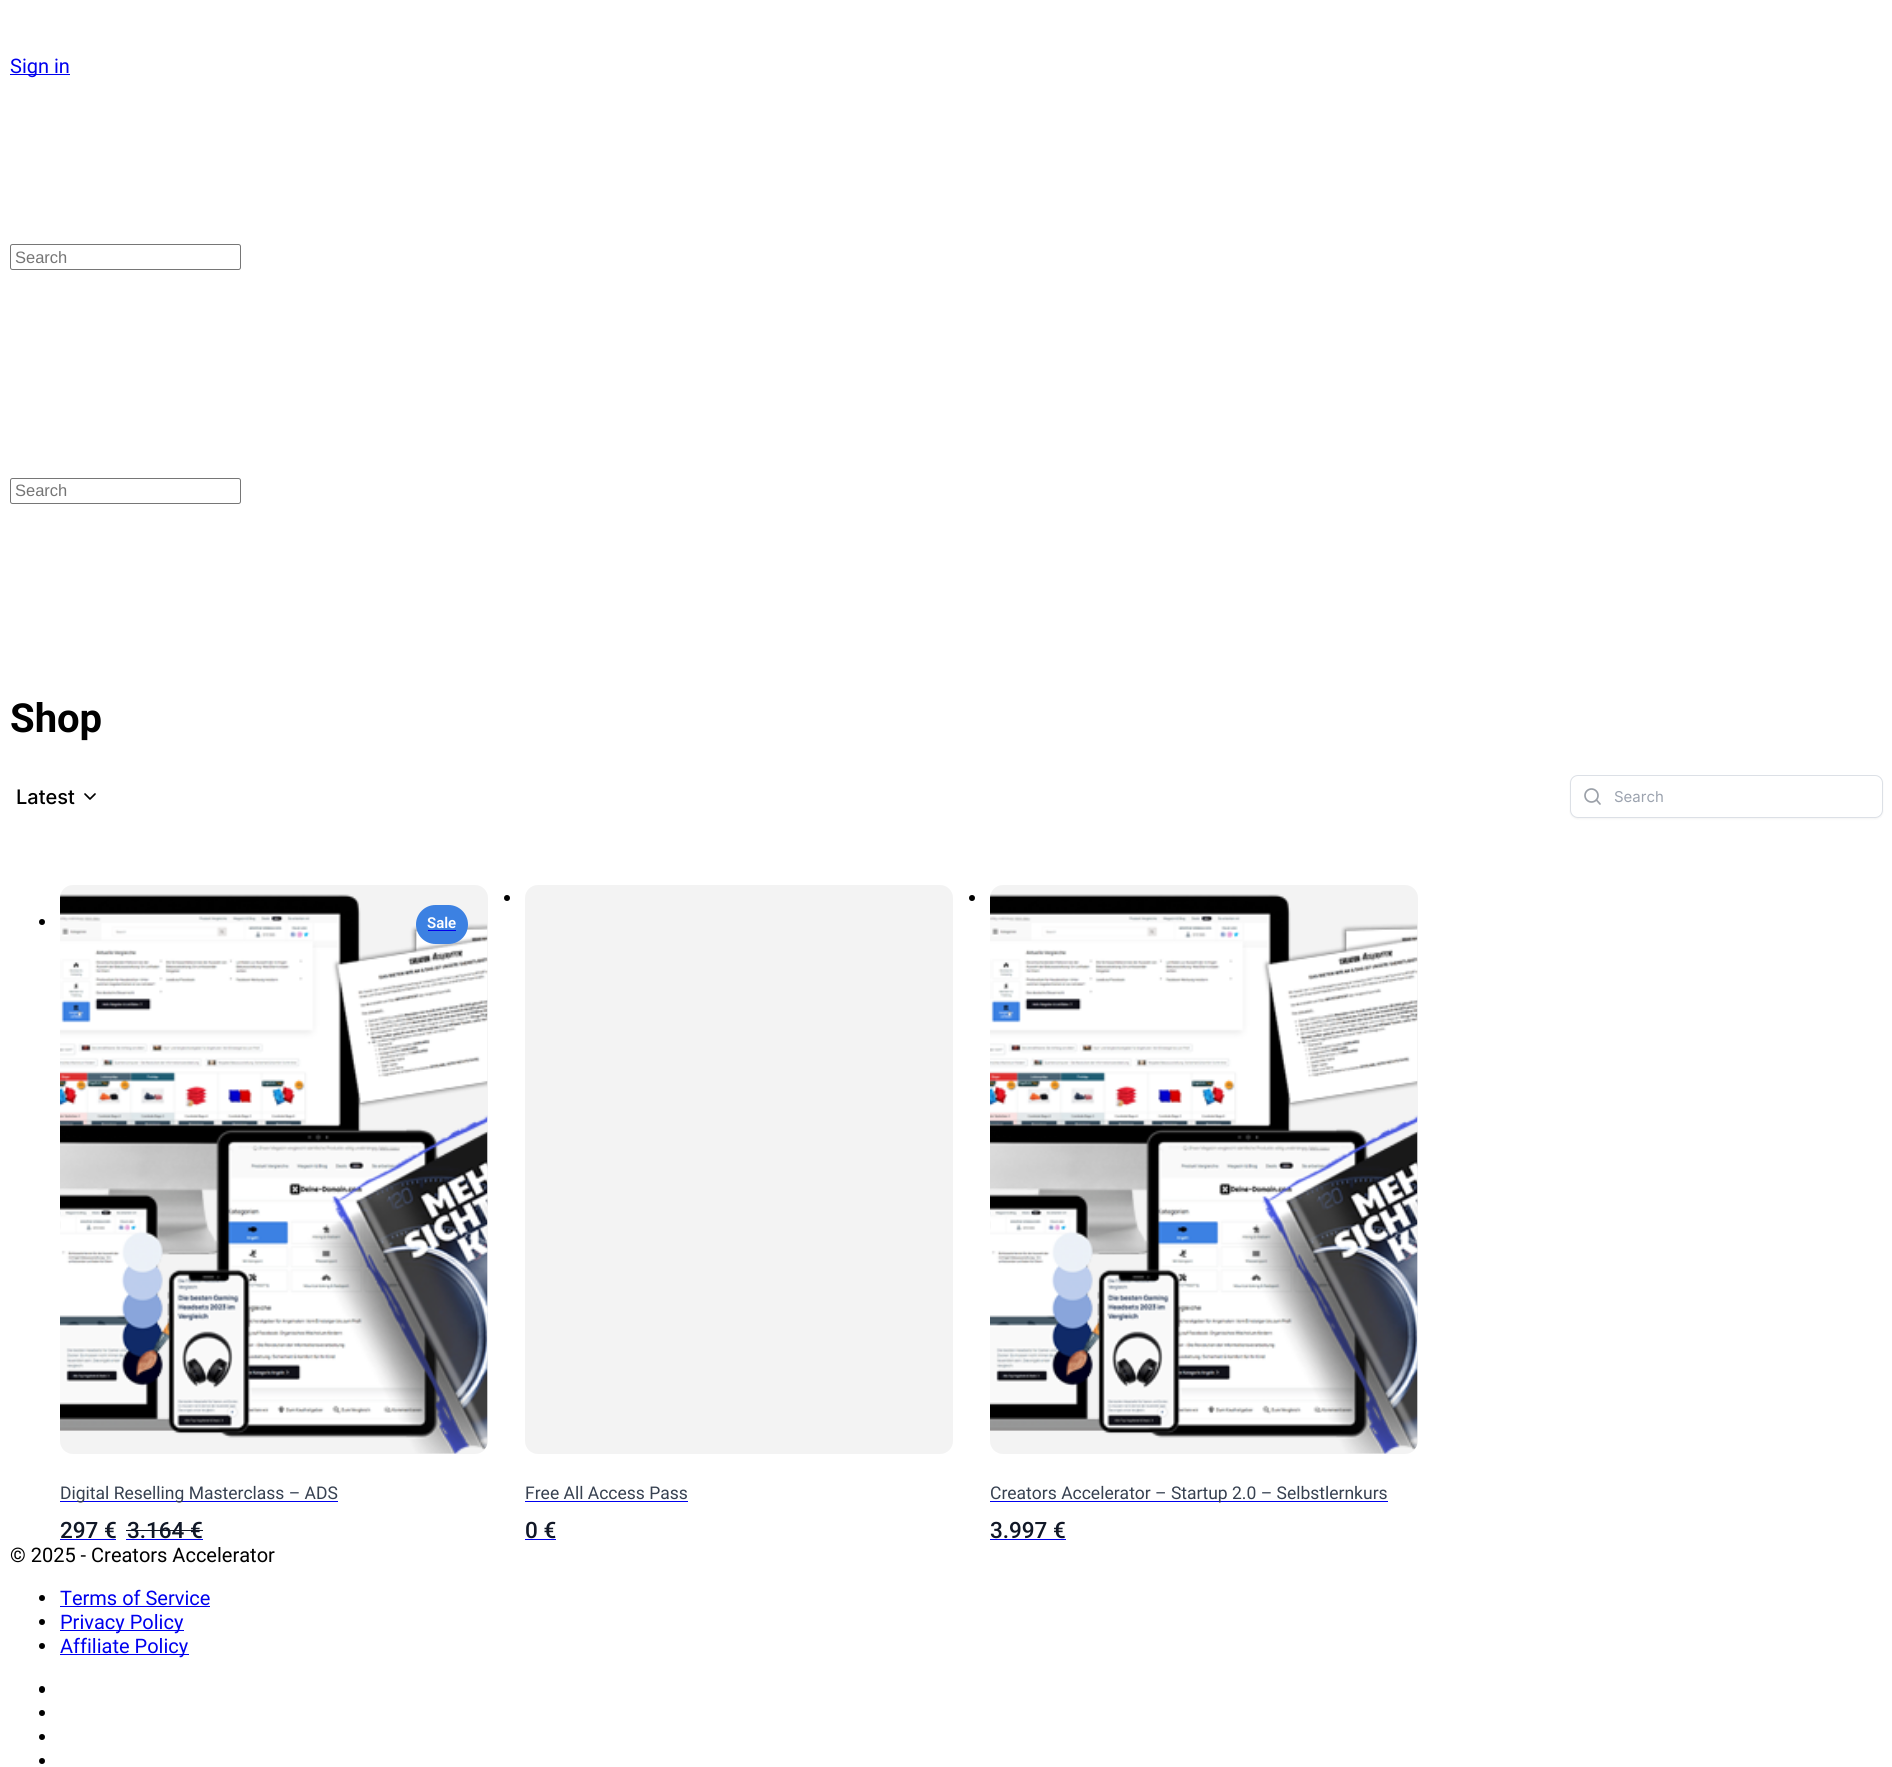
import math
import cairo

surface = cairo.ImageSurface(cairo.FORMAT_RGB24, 1892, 1767)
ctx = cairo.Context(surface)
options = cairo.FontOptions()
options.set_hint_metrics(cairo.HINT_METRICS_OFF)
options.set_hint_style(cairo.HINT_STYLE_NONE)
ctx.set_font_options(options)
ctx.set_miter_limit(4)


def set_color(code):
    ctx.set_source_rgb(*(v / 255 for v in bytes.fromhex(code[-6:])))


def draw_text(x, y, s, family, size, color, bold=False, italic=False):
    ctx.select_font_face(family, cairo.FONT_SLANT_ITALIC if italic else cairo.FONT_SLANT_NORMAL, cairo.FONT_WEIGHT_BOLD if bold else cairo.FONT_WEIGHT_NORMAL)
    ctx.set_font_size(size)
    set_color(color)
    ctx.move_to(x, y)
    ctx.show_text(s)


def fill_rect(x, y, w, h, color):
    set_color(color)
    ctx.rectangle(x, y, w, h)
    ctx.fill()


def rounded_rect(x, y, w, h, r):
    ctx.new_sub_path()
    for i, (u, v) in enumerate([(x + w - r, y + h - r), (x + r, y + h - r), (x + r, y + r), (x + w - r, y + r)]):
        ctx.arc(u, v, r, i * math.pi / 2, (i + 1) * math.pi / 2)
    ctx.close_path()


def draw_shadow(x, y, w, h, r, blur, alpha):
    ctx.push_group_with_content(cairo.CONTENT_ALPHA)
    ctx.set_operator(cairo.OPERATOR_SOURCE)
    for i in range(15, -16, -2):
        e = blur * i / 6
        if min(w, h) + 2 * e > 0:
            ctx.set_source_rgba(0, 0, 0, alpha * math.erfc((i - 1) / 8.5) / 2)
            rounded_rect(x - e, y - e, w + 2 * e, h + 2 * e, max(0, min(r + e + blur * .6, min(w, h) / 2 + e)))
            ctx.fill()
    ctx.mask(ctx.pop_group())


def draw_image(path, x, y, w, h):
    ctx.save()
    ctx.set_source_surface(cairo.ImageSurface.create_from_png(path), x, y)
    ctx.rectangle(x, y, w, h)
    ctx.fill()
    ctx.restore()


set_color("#ffffff")
ctx.paint()
fill_rect(10, 74, 60, 1, "#0000ee")
draw_text(10, 73, "Sign in", "Roboto", 20, "#0000ee")
rounded_rect(10.5, 244.5, 230, 25, 2)
set_color("#767676")
ctx.set_line_width(1)
ctx.stroke()
draw_text(15, 263, "Search", "Liberation Sans", 16.5, "#757575")
rounded_rect(10.5, 478.5, 230, 25, 2)
set_color("#767676")
ctx.stroke()
draw_text(15, 496, "Search", "Liberation Sans", 16.5, "#757575")
draw_text(10, 732, "Shop", "Roboto", 40, "#000000", bold=True)
draw_text(16, 804, "Latest", "Inter Medium", 20, "#000000")
ctx.new_path()
ctx.move_to(85, 794)
ctx.line_to(90, 799)
ctx.line_to(95, 794)
ctx.set_line_width(1.7)
ctx.set_line_cap(cairo.LINE_CAP_ROUND)
ctx.set_line_join(cairo.LINE_JOIN_ROUND)
ctx.stroke()
set_color("#000000")
draw_shadow(1570, 776, 313, 43, 8, 1, 0.05)
set_color("#ffffff")
rounded_rect(1570.5, 775.5, 312, 42, 7.5)
ctx.fill_preserve()
set_color("#dce0e6")
ctx.set_line_width(1)
ctx.set_line_cap(cairo.LINE_CAP_BUTT)
ctx.set_line_join(cairo.LINE_JOIN_MITER)
ctx.stroke()
ctx.arc(1591.5, 795.5, 6.5, 0, 2 * math.pi)
set_color("#9ba0a8")
ctx.set_line_width(1.7)
ctx.stroke()
ctx.new_path()
ctx.move_to(1600, 804)
ctx.line_to(1596.5, 800)
ctx.set_line_cap(cairo.LINE_CAP_ROUND)
ctx.set_line_join(cairo.LINE_JOIN_ROUND)
ctx.stroke()
draw_text(1614, 802, "Search", "Inter", 15, "#9ca3af")
set_color("#000000")
ctx.new_path()
ctx.arc(42, 922, 3, 0, 2 * math.pi)
ctx.fill()
set_color("#f3f3f3")
rounded_rect(60, 885, 428, 569, 13)
ctx.fill()
draw_image("assets/img1.png", 60, 894, 428, 560)
set_color("#3c81e2")
rounded_rect(416, 905, 52, 39, 19.5)
ctx.fill()
draw_text(427, 928, "Sale", "Roboto SemiBold", 15, "#ffffff")
fill_rect(428, 930, 28, 1, "#0000ee")
fill_rect(60, 1501, 278, 1, "#0000ee")
draw_text(60, 1499, "Digital Reselling Masterclass – ADS", "Roboto", 17.5, "#374151")
draw_text(60, 1538, "297 €", "Roboto Medium", 22.5, "#111827")
fill_rect(60, 1539, 56, 1, "#0000ee")
draw_text(127, 1538, "3.164 €", "Roboto Medium", 22.5, "#111827")
fill_rect(126, 1539, 77, 1, "#0000ee")
fill_rect(126, 1530, 77, 1, "#111827")
set_color("#000000")
ctx.new_path()
ctx.arc(507, 898, 3, 0, 2 * math.pi)
ctx.fill()
set_color("#f3f3f3")
rounded_rect(525, 885, 428, 569, 13)
ctx.fill()
draw_text(525, 1499, "Free All Access Pass", "Roboto", 17.5, "#374151")
fill_rect(525, 1501, 163, 1, "#0000ee")
draw_text(525, 1538, "0 €", "Roboto Medium", 22.5, "#111827")
fill_rect(525, 1539, 31, 1, "#0000ee")
set_color("#000000")
ctx.new_path()
ctx.arc(972, 898, 3, 0, 2 * math.pi)
ctx.fill()
set_color("#f3f3f3")
rounded_rect(990, 885, 428, 569, 13)
ctx.fill()
draw_image("assets/img1.png", 990, 894, 428, 560)
fill_rect(990, 1501, 398, 1, "#0000ee")
draw_text(990, 1499, "Creators Accelerator – Startup 2.0 – Selbstlernkurs", "Roboto", 17.5, "#374151")
draw_text(990, 1538, "3.997 €", "Roboto Medium", 22.5, "#111827")
fill_rect(990, 1539, 76, 1, "#0000ee")
draw_text(10, 1562, "© 2025 - Creators Accelerator", "Roboto", 20, "#000000")
ctx.new_path()
ctx.arc(42, 1598, 3, 0, 2 * math.pi)
ctx.fill()
draw_text(60, 1605, "Terms of Service", "Roboto", 20, "#0000ee")
fill_rect(60, 1606, 150, 1, "#0000ee")
set_color("#000000")
ctx.new_path()
ctx.arc(42, 1622, 3, 0, 2 * math.pi)
ctx.fill()
fill_rect(60, 1630, 124, 1, "#0000ee")
draw_text(60, 1629, "Privacy Policy", "Roboto", 20, "#0000ee")
set_color("#000000")
ctx.new_path()
ctx.arc(42, 1646, 3, 0, 2 * math.pi)
ctx.fill()
fill_rect(60, 1654, 129, 1, "#0000ee")
draw_text(60, 1653, "Affiliate Policy", "Roboto", 20, "#0000ee")
set_color("#000000")
rounded_rect(39, 1686, 6, 7, 3)
ctx.fill()
ctx.arc(42, 1713, 3, 0, 2 * math.pi)
ctx.fill()
ctx.arc(42, 1737, 3, 0, 2 * math.pi)
ctx.fill()
ctx.arc(42, 1761, 3, 0, 2 * math.pi)
ctx.fill()
surface.write_to_png("output.png")
